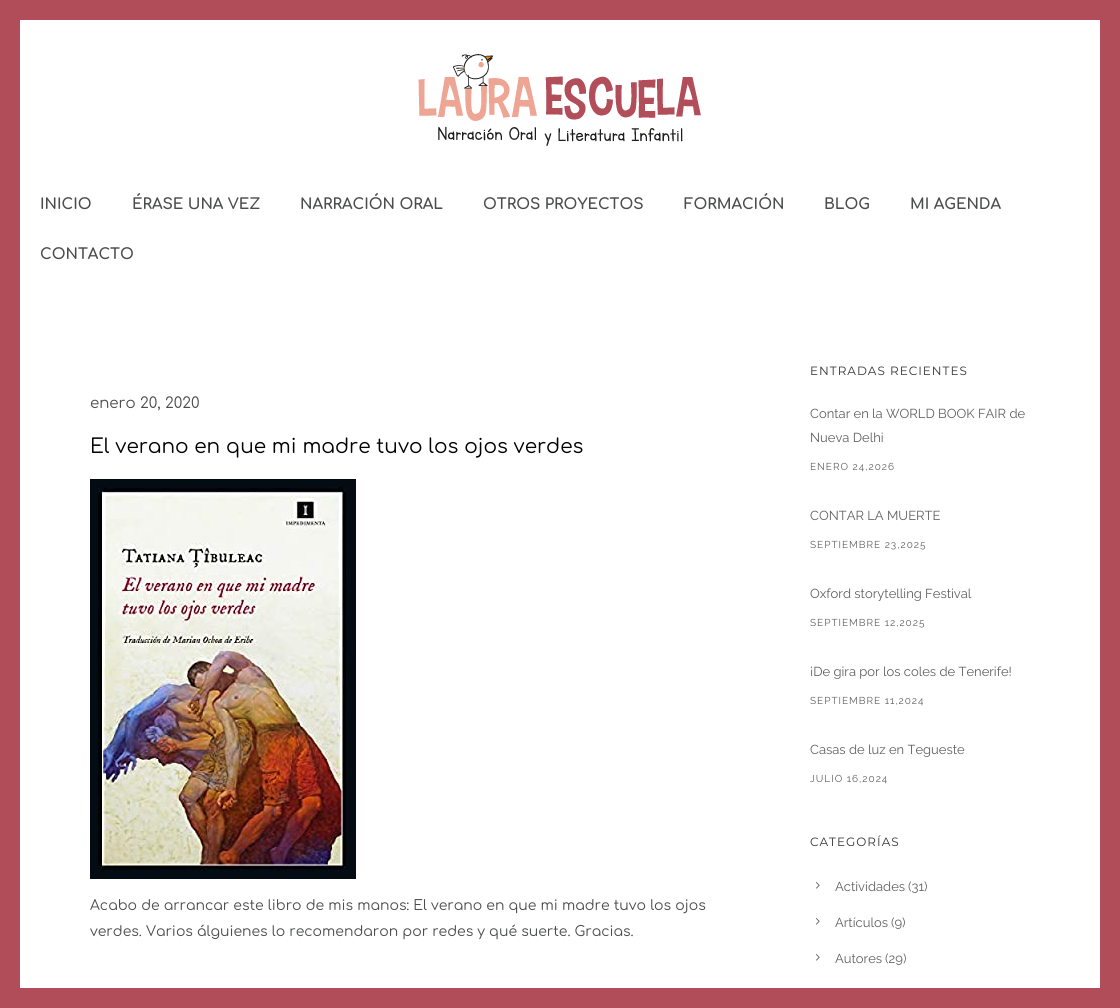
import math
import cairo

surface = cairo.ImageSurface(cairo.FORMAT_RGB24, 1120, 1008)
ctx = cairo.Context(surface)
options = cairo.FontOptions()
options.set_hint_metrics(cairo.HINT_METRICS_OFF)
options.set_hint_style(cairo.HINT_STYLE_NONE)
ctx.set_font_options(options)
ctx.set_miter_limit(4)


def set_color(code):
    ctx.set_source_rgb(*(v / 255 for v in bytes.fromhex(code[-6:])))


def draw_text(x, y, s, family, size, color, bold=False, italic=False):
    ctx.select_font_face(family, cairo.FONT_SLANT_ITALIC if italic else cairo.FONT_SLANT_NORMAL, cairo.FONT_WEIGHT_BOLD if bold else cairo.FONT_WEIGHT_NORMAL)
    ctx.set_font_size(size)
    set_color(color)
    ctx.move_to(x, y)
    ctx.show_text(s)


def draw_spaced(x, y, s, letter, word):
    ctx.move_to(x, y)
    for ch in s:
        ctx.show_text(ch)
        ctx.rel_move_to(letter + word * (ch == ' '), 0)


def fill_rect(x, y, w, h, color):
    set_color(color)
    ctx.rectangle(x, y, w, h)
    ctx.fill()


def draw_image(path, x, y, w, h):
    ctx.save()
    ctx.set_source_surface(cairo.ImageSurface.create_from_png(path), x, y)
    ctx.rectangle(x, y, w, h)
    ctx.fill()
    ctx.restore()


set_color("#ffffff")
ctx.paint()
fill_rect(0, 0, 20, 1008, "#b14c59")
fill_rect(20, 0, 1080, 20, "#b14c59")
fill_rect(1100, 0, 20, 988, "#b14c59")
fill_rect(20, 988, 1100, 20, "#b14c59")
draw_image("assets/img1.png", 418, 54, 283, 92)
draw_text(40, 209, "INICIO", "Comfortaa", 15, "#4b4c4c", bold=True)
draw_text(132, 209, "ÉRASE UNA VEZ", "Comfortaa", 15, "#4b4c4c", bold=True)
draw_text(300, 209, "NARRACIÓN ORAL", "Comfortaa", 15, "#4b4c4c", bold=True)
draw_text(483, 209, "OTROS PROYECTOS", "Comfortaa", 15, "#4b4c4c", bold=True)
draw_text(684, 209, "FORMACIÓN", "Comfortaa", 15, "#4b4c4c", bold=True)
draw_text(824, 209, "BLOG", "Comfortaa", 15, "#4b4c4c", bold=True)
draw_text(910, 209, "MI AGENDA", "Comfortaa", 15, "#4b4c4c", bold=True)
draw_text(40, 259, "CONTACTO", "Comfortaa", 15, "#4b4c4c", bold=True)
draw_text(90, 408, "enero 20, 2020", "Comfortaa", 15, "#4b4c4c")
draw_text(90, 453, "El verano en que mi madre tuvo los ojos verdes", "Comfortaa", 20, "#000000")
draw_image("assets/img2.png", 90, 479, 266, 400)
draw_text(90, 910, "Acabo de arrancar este libro de mis manos: El verano en que mi madre tuvo los ojos", "Comfortaa", 14, "#4b4c4c")
draw_text(90, 936, "verdes. Varios álguienes lo recomendaron por redes y qué suerte. Gracias.", "Comfortaa", 14, "#4b4c4c")
ctx.select_font_face("Montserrat")
ctx.set_font_size(12)
set_color("#333333")
draw_spaced(810, 375, "ENTRADAS RECIENTES", 1, 0)
draw_text(810, 418, "Contar en la WORLD BOOK FAIR de", "Raleway Thin", 13, "#606060")
draw_text(810, 442, "Nueva Delhi", "Raleway Thin", 13, "#606060")
ctx.set_font_size(10)
draw_spaced(810, 470, "ENERO 24,2026", 1, 0)
draw_text(810, 520, "CONTAR LA MUERTE", "Raleway Thin", 13, "#606060")
ctx.set_font_size(10)
draw_spaced(810, 548, "SEPTIEMBRE 23,2025", 1, 0)
draw_text(810, 598, "Oxford storytelling Festival", "Raleway Thin", 13, "#606060")
ctx.set_font_size(10)
draw_spaced(810, 626, "SEPTIEMBRE 12,2025", 1, 0)
draw_text(810, 676, "¡De gira por los coles de Tenerife!", "Raleway Thin", 13, "#606060")
ctx.set_font_size(10)
draw_spaced(810, 704, "SEPTIEMBRE 11,2024", 1, 0)
draw_text(810, 754, "Casas de luz en Tegueste", "Raleway Thin", 13, "#606060")
ctx.set_font_size(10)
draw_spaced(810, 782, "JULIO 16,2024", 1, 0)
ctx.select_font_face("Montserrat")
ctx.set_font_size(12)
set_color("#333333")
draw_spaced(810, 846, "CATEGORÍAS", 1, 0)
draw_image("assets/img3.png", 816, 882, 4, 7)
draw_text(835, 891, "Actividades", "Raleway Thin", 13, "#606060")
draw_text(908, 891, "(31)", "Raleway Thin", 13, "#606060")
draw_image("assets/img3.png", 816, 918, 4, 7)
draw_text(835, 927, "Artículos", "Raleway Thin", 13, "#606060")
draw_text(891, 927, "(9)", "Raleway Thin", 13, "#606060")
draw_image("assets/img3.png", 816, 954, 4, 7)
draw_text(835, 963, "Autores", "Raleway Thin", 13, "#606060")
draw_text(885, 963, "(29)", "Raleway Thin", 13, "#606060")
surface.write_to_png("output.png")
